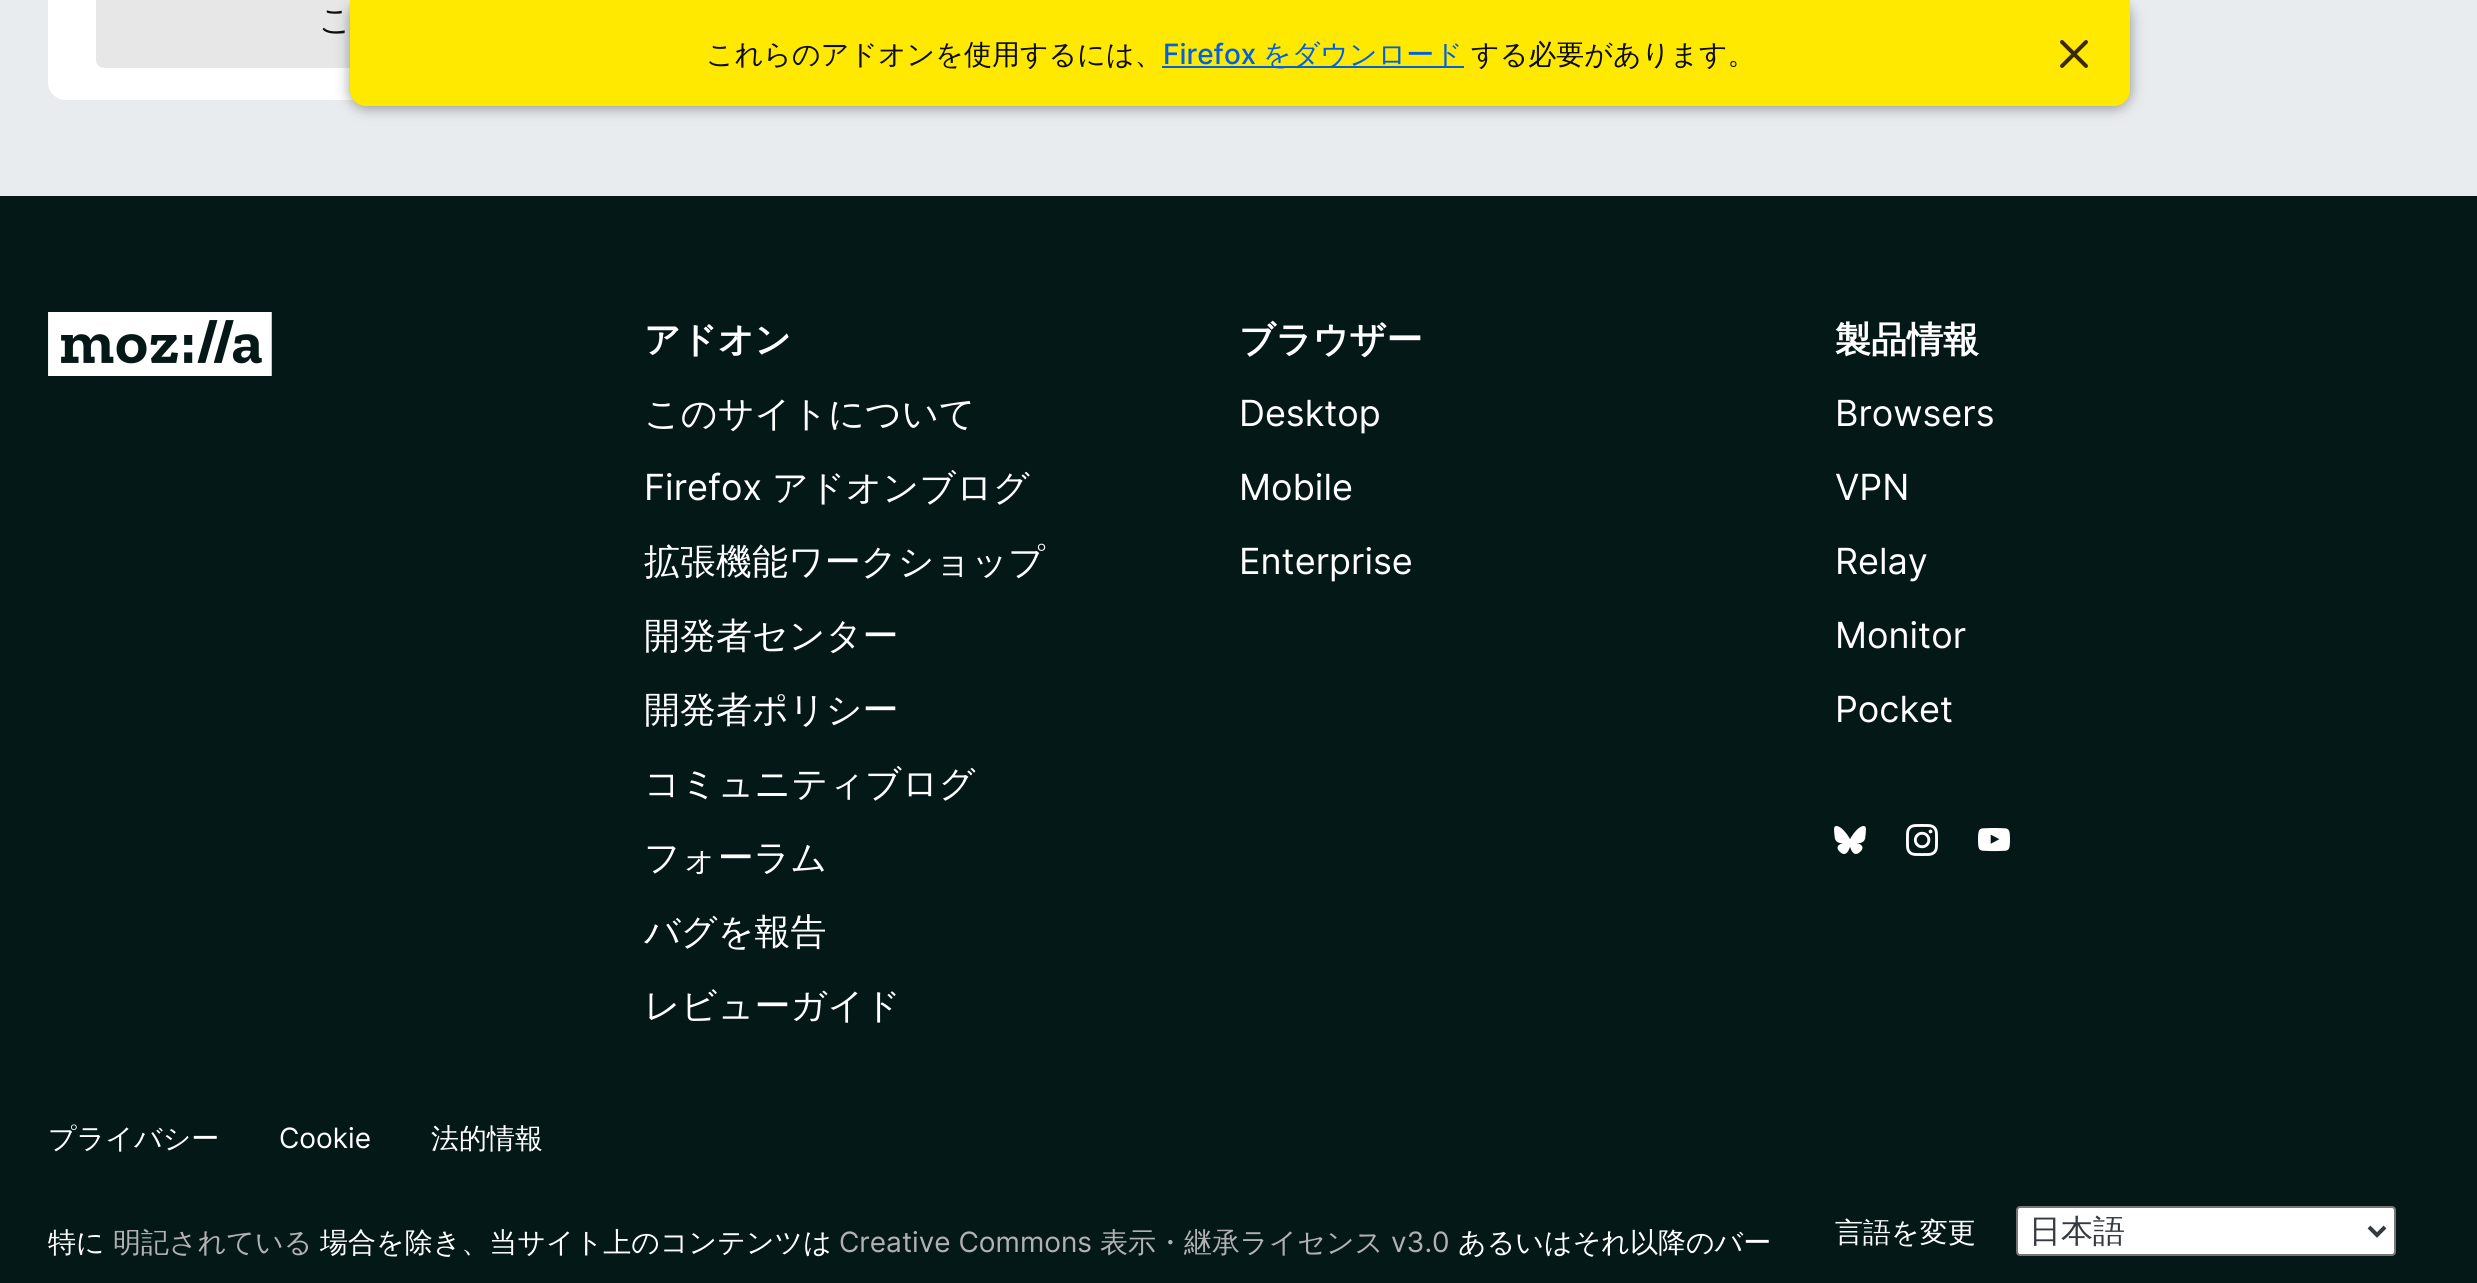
import math
import cairo

surface = cairo.ImageSurface(cairo.FORMAT_RGB24, 2477, 1283)
ctx = cairo.Context(surface)
options = cairo.FontOptions()
options.set_hint_metrics(cairo.HINT_METRICS_OFF)
options.set_hint_style(cairo.HINT_STYLE_NONE)
ctx.set_font_options(options)
ctx.set_miter_limit(4)


def set_color(code):
    ctx.set_source_rgb(*(v / 255 for v in bytes.fromhex(code[-6:])))


def draw_text(x, y, s, family, size, color, bold=False, italic=False):
    ctx.select_font_face(family, cairo.FONT_SLANT_ITALIC if italic else cairo.FONT_SLANT_NORMAL, cairo.FONT_WEIGHT_BOLD if bold else cairo.FONT_WEIGHT_NORMAL)
    ctx.set_font_size(size)
    set_color(color)
    ctx.move_to(x, y)
    ctx.show_text(s)


def fill_rect(x, y, w, h, color):
    set_color(color)
    ctx.rectangle(x, y, w, h)
    ctx.fill()


def rounded_rect(x, y, w, h, r):
    ctx.new_sub_path()
    for i, (u, v) in enumerate([(x + w - r, y + h - r), (x + r, y + h - r), (x + r, y + r), (x + w - r, y + r)]):
        ctx.arc(u, v, r, i * math.pi / 2, (i + 1) * math.pi / 2)
    ctx.close_path()


def draw_shadow(x, y, w, h, r, blur, alpha):
    ctx.push_group_with_content(cairo.CONTENT_ALPHA)
    ctx.set_operator(cairo.OPERATOR_SOURCE)
    for i in range(15, -16, -2):
        e = blur * i / 6
        if min(w, h) + 2 * e > 0:
            ctx.set_source_rgba(0, 0, 0, alpha * math.erfc((i - 1) / 8.5) / 2)
            rounded_rect(x - e, y - e, w + 2 * e, h + 2 * e, max(0, min(r + e + blur * .6, min(w, h) / 2 + e)))
            ctx.fill()
    ctx.mask(ctx.pop_group())


def draw_image(path, x, y, w, h):
    ctx.save()
    ctx.set_source_surface(cairo.ImageSurface.create_from_png(path), x, y)
    ctx.rectangle(x, y, w, h)
    ctx.fill()
    ctx.restore()


set_color("#e9ecef")
ctx.paint()
set_color("#ffffff")
ctx.new_path()
ctx.move_to(48, -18)
ctx.line_to(882, -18)
ctx.line_to(882, 82)
ctx.curve_to(882, 92, 874, 100, 864, 100)
ctx.line_to(66, 100)
ctx.curve_to(56, 100, 48, 92, 48, 82)
ctx.close_path()
ctx.fill()
set_color("#e7e7e7")
rounded_rect(96, -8, 738, 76, 8)
ctx.fill()
draw_text(319, 31, "こ", "WenQuanYi Zen Hei Medium", 32, "#0c0c0d")
set_color("#343a40")
draw_shadow(350, 2, 1780, 106, 16, 7, 0.5)
set_color("#ffe900")
ctx.new_path()
ctx.move_to(350, 0)
ctx.line_to(2130, 0)
ctx.line_to(2130, 90)
ctx.curve_to(2130, 99, 2123, 106, 2114, 106)
ctx.line_to(366, 106)
ctx.curve_to(357, 106, 350, 99, 350, 90)
ctx.close_path()
ctx.fill()
draw_text(706, 64, "これらのアドオンを使用するには、", "WenQuanYi Zen Hei Medium", 28, "#0c0c0d")
draw_text(1163, 64, "Firefox", "Inter Medium", 28, "#0060df")
fill_rect(1162, 66, 302, 2, "#0060df")
draw_text(1263, 64, "をダウンロード", "WenQuanYi Zen Hei Medium", 28, "#0060df")
draw_text(1471, 64, "する必要があります。", "WenQuanYi Zen Hei Medium", 28, "#0c0c0d")
draw_image("assets/img1.png", 2060, 40, 28, 28)
fill_rect(0, 196, 2477, 1087, "#051818")
draw_image("assets/img2.png", 48, 312, 224, 64)
draw_text(644, 352, "アドオン", "WenQuanYi Zen Hei", 36, "#ffffff", bold=True)
draw_text(644, 426, "このサイトについて", "WenQuanYi Zen Hei Medium", 36, "#ffffff")
draw_text(644, 500, "Firefox", "Inter", 36, "#ffffff")
draw_text(772, 500, "アドオンブログ", "WenQuanYi Zen Hei Medium", 36, "#ffffff")
draw_text(644, 574, "拡張機能ワークショップ", "WenQuanYi Zen Hei Medium", 36, "#ffffff")
draw_text(644, 648, "開発者センター", "WenQuanYi Zen Hei Medium", 36, "#ffffff")
draw_text(644, 722, "開発者ポリシー", "WenQuanYi Zen Hei Medium", 36, "#ffffff")
draw_text(644, 796, "コミュニティブログ", "WenQuanYi Zen Hei Medium", 36, "#ffffff")
draw_text(644, 870, "フォーラム", "WenQuanYi Zen Hei Medium", 36, "#ffffff")
draw_text(644, 944, "バグを報告", "WenQuanYi Zen Hei Medium", 36, "#ffffff")
draw_text(644, 1018, "レビューガイド", "WenQuanYi Zen Hei Medium", 36, "#ffffff")
draw_text(1239, 352, "ブラウザー", "WenQuanYi Zen Hei", 36, "#ffffff", bold=True)
draw_text(1239, 426, "Desktop", "Inter", 36, "#ffffff")
draw_text(1239, 500, "Mobile", "Inter", 36, "#ffffff")
draw_text(1239, 574, "Enterprise", "Inter", 36, "#ffffff")
draw_text(1835, 352, "製品情報", "WenQuanYi Zen Hei", 36, "#ffffff", bold=True)
draw_text(1835, 426, "Browsers", "Inter", 36, "#ffffff")
draw_text(1835, 500, "VPN", "Inter", 36, "#ffffff")
draw_text(1835, 574, "Relay", "Inter", 36, "#ffffff")
draw_text(1835, 648, "Monitor", "Inter", 36, "#ffffff")
draw_text(1835, 722, "Pocket", "Inter", 36, "#ffffff")
draw_image("assets/img3.png", 1834, 826, 32, 28)
draw_image("assets/img4.png", 1906, 824, 32, 32)
draw_image("assets/img5.png", 1978, 828, 32, 24)
draw_text(48, 1148, "プライバシー", "WenQuanYi Zen Hei Medium", 28, "#ffffff")
draw_text(279, 1148, "Cookie", "Inter", 28, "#ffffff")
draw_text(431, 1148, "法的情報", "WenQuanYi Zen Hei Medium", 28, "#ffffff")
draw_text(48, 1252, "特に", "WenQuanYi Zen Hei Medium", 28, "#ffffff")
draw_text(113, 1252, "明記されている", "WenQuanYi Zen Hei Medium", 28, "#b1b1b3")
draw_text(320, 1252, "場合を除き、当サイト上のコンテンツは", "WenQuanYi Zen Hei Medium", 28, "#ffffff")
draw_text(839, 1252, "Creative Commons", "Inter", 28, "#b1b1b3")
draw_text(1100, 1252, "表示・継承ライセンス", "WenQuanYi Zen Hei Medium", 28, "#b1b1b3")
draw_text(1391, 1252, "v3.0", "Inter", 28, "#b1b1b3")
draw_text(1458, 1252, "あるいはそれ以降のバー", "WenQuanYi Zen Hei Medium", 28, "#ffffff")
draw_text(1835, 1242, "言語を変更", "WenQuanYi Zen Hei Medium", 28, "#ffffff")
rounded_rect(2017, 1207, 378, 48, 3)
ctx.fill_preserve()
set_color("#767676")
ctx.stroke()
ctx.new_path()
ctx.move_to(2369, 1227)
ctx.line_to(2377, 1235)
ctx.line_to(2385, 1227)
set_color("#343a40")
ctx.set_line_width(4)
ctx.stroke()
draw_text(2029, 1242, "日本語", "WenQuanYi Zen Hei Medium", 32, "#343a40")
surface.write_to_png("output.png")
